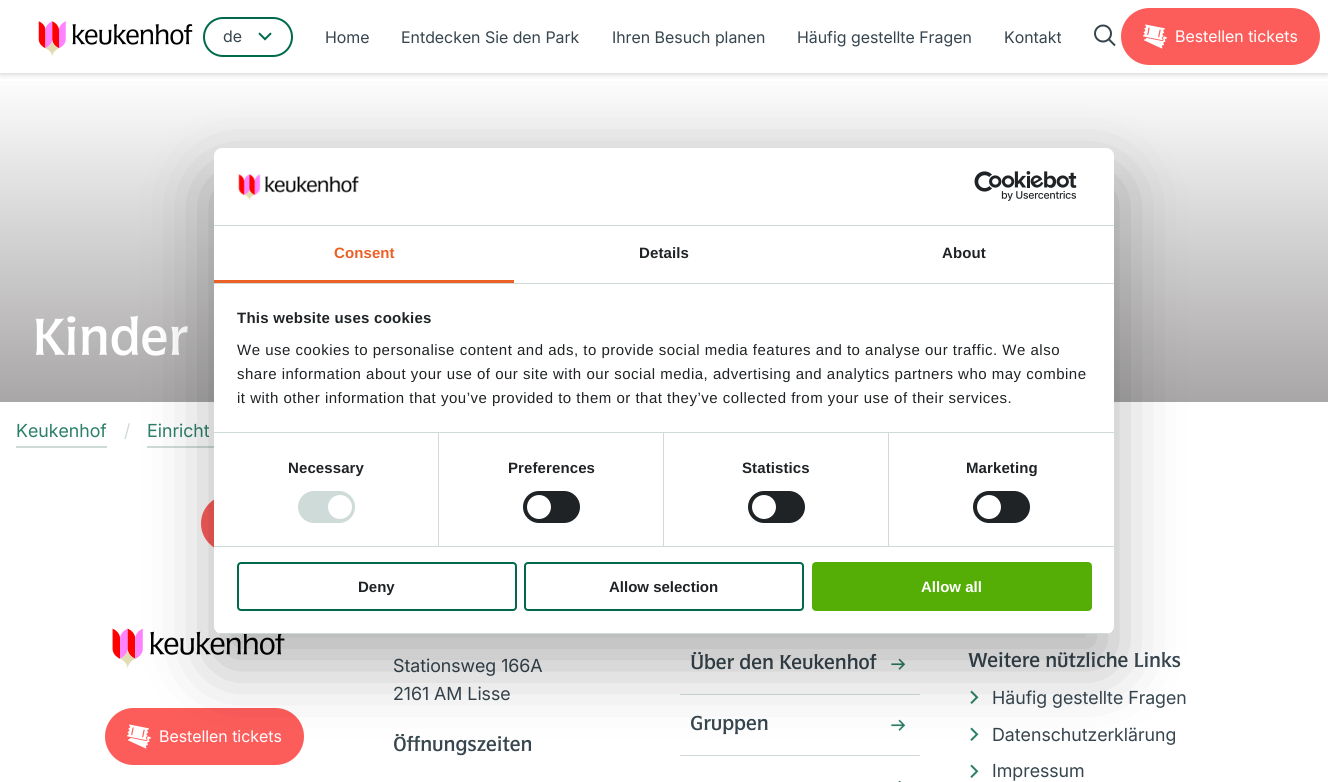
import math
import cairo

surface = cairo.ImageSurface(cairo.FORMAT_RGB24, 1328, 782)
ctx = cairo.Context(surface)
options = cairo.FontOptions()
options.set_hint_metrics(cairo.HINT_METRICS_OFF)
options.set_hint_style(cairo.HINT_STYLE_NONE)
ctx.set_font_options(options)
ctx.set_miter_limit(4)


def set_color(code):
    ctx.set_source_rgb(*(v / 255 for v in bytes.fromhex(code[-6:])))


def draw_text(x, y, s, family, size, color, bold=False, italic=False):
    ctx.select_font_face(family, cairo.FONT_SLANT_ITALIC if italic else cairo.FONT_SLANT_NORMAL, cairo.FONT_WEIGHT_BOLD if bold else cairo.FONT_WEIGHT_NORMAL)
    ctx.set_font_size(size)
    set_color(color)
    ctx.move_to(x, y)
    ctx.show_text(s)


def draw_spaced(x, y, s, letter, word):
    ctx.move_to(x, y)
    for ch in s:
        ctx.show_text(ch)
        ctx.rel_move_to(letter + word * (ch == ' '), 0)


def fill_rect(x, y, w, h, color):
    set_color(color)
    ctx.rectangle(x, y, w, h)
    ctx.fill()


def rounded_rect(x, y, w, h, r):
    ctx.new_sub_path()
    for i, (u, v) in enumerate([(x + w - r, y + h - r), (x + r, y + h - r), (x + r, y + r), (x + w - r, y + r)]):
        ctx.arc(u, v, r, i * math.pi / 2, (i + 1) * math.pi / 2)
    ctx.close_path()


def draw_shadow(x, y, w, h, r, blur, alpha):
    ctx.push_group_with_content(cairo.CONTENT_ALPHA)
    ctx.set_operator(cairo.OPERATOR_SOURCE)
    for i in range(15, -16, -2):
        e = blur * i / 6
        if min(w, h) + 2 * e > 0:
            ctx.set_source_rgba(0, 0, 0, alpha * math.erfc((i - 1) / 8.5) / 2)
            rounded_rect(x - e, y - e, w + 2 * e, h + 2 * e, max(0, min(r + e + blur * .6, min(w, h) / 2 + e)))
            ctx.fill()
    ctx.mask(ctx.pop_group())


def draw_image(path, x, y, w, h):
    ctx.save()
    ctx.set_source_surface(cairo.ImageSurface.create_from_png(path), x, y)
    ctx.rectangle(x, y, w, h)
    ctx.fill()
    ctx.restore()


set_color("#ffffff")
ctx.paint()
gradient = cairo.LinearGradient(664, 72, 664, 402)
gradient.add_color_stop_rgba(0, 1, 1, 1, 1)
gradient.add_color_stop_rgba(1, 0.659, 0.651, 0.651, 1)
ctx.set_source(gradient)
ctx.rectangle(0, 81, 1328, 321)
ctx.fill()
ctx.save()
ctx.rectangle(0, 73, 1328, 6)
ctx.clip()
set_color("#000000")
draw_shadow(0, 0, 1328, 73, 0, 4, 0.24)
ctx.restore()
draw_image("assets/img1.png", 38, 21, 155, 36)
rounded_rect(204, 18, 88, 38, 19)
set_color("#00694c")
ctx.stroke()
draw_text(223, 42, "de", "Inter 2", 16, "#36454e")
draw_image("assets/img2.png", 258, 32, 14, 9)
draw_text(325, 43, "Home", "Inter 2", 16, "#36454e")
draw_text(401, 43, "Entdecken Sie den Park", "Inter 2", 16, "#36454e")
draw_text(612, 43, "Ihren Besuch planen", "Inter 2", 16, "#36454e")
draw_text(797, 43, "Häufig gestellte Fragen", "Inter 2", 16, "#36454e")
draw_text(1004, 43, "Kontakt", "Inter 2", 16, "#36454e")
draw_image("assets/img3.png", 1094, 24, 22, 23)
set_color("#fc5d5a")
rounded_rect(1122, 9, 197, 55, 27.5)
ctx.fill_preserve()
ctx.stroke()
draw_image("assets/img4.png", 1143, 24, 24, 25)
draw_text(1175, 42, "Bestellen tickets", "Inter 2", 16, "#ffffff")
draw_text(32, 355, "Kinder", "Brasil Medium", 52, "#ffffff")
fill_rect(16, 446, 91, 2, "#cedbd8")
draw_text(16, 437, "Keukenhof", "Inter", 18, "#2b7f68")
draw_text(124, 437, "/", "Inter", 18, "#cedbd8")
fill_rect(147, 446, 67, 2, "#cedbd8")
draw_text(147, 437, "Einricht", "Inter", 18, "#2b7f68")
set_color("#fc5d5a")
rounded_rect(202, 496, 201, 55, 27.5)
ctx.fill_preserve()
ctx.stroke()
draw_image("assets/img5.png", 112, 628, 173, 41)
rounded_rect(106, 709, 197, 55, 27.5)
ctx.fill_preserve()
ctx.stroke()
draw_image("assets/img4.png", 127, 724, 24, 25)
draw_text(159, 742, "Bestellen tickets", "Inter 2", 16, "#ffffff")
draw_text(393, 672, "Stationsweg 166A", "Inter", 18, "#36454e")
draw_text(393, 700, "2161 AM Lisse", "Inter", 18, "#36454e")
draw_text(393, 751, "Öffnungszeiten", "Brasil Medium", 20, "#36454e")
fill_rect(680, 694, 240, 1, "#cedbd8")
draw_text(690, 669, "Über den Keukenhof", "Brasil Medium", 20, "#36454e")
draw_image("assets/img6.png", 891, 658, 15, 12)
fill_rect(680, 755, 240, 1, "#cedbd8")
draw_text(690, 730, "Gruppen", "Brasil Medium", 20, "#36454e")
draw_image("assets/img6.png", 891, 719, 15, 12)
draw_image("assets/img7.png", 898, 780, 3, 2)
draw_text(968, 667, "Weitere nützliche Links", "Brasil Medium", 20, "#36454e")
draw_image("assets/img8.png", 970, 690, 9, 14)
draw_text(992, 704, "Häufig gestellte Fragen", "Inter", 18, "#36454e")
draw_image("assets/img8.png", 970, 727, 9, 14)
draw_text(992, 741, "Datenschutzerklärung", "Inter", 18, "#36454e")
draw_image("assets/img8.png", 970, 764, 9, 14)
draw_text(992, 777, "Impressum", "Inter", 18, "#36454e")
set_color("#000000")
draw_shadow(214, 180, 900, 486, 8, 34, 0.3)
set_color("#ffffff")
rounded_rect(214, 148, 900, 486, 8)
ctx.fill()
fill_rect(214, 225, 900, 1, "#cedbd8")
draw_image("assets/img9.png", 238, 174, 121, 27)
draw_image("assets/img10.png", 974, 171, 103, 30)
fill_rect(214, 283, 900, 1, "#cedbd8")
fill_rect(214, 280, 300, 3, "#ea6025")
ctx.select_font_face("Liberation Sans", cairo.FONT_SLANT_NORMAL, cairo.FONT_WEIGHT_BOLD)
ctx.set_font_size(15)
draw_spaced(334, 258, "Consent", 0.1, 0)
set_color("#1f2325")
draw_spaced(639, 258, "Details", 0.1, 0)
draw_spaced(942, 258, "About", 0.1, 0)
fill_rect(214, 432, 900, 1, "#cedbd8")
set_color("#1f2325")
draw_spaced(237, 323, "This website uses cookies", 0.25, 0)
ctx.select_font_face("Liberation Sans")
draw_spaced(237, 355, "We use cookies to personalise content and ads, to provide social media features and to analyse our traffic. We also", 0.5, 0)
draw_spaced(237, 379, "share information about your use of our site with our social media, advertising and analytics partners who may combine", 0.5, 0)
draw_spaced(237, 403, "it with other information that you’ve provided to them or that they’ve collected from your use of their services.", 0.5, 0)
fill_rect(214, 546, 900, 1, "#cedbd8")
fill_rect(438, 433, 1, 113, "#cedbd8")
ctx.select_font_face("Liberation Sans", cairo.FONT_SLANT_NORMAL, cairo.FONT_WEIGHT_BOLD)
set_color("#1f2325")
draw_spaced(288, 473, "Necessary", 0.1, 0)
set_color("#cedbd8")
rounded_rect(298, 491, 57, 32, 16)
ctx.fill()
set_color("#ffffff")
ctx.arc(340, 507, 12, 0, 2 * math.pi)
ctx.fill()
fill_rect(663, 433, 1, 113, "#cedbd8")
set_color("#1f2325")
draw_spaced(508, 473, "Preferences", 0.1, 0)
rounded_rect(523, 491, 57, 32, 16)
ctx.fill()
set_color("#ffffff")
ctx.arc(539, 507, 12, 0, 2 * math.pi)
ctx.fill()
fill_rect(888, 433, 1, 113, "#cedbd8")
set_color("#1f2325")
draw_spaced(742, 473, "Statistics", 0.1, 0)
rounded_rect(748, 491, 57, 32, 16)
ctx.fill()
set_color("#ffffff")
ctx.arc(764, 507, 12, 0, 2 * math.pi)
ctx.fill()
set_color("#1f2325")
draw_spaced(966, 473, "Marketing", 0.1, 0)
rounded_rect(973, 491, 57, 32, 16)
ctx.fill()
set_color("#ffffff")
ctx.arc(989, 507, 12, 0, 2 * math.pi)
ctx.fill()
ctx.save()
rounded_rect(214, 148, 900, 486, 8)
ctx.clip()
fill_rect(214, 633, 900, 1, "#cedbd8")
ctx.restore()
rounded_rect(238, 563, 278, 47, 3)
set_color("#00694c")
ctx.stroke()
draw_text(358, 592, "Deny", "Liberation Sans", 15, "#1f2325", bold=True)
rounded_rect(525, 563, 278, 47, 3)
set_color("#00694c")
ctx.stroke()
draw_text(609, 592, "Allow selection", "Liberation Sans", 15, "#1f2325", bold=True)
set_color("#54ae06")
rounded_rect(813, 563, 278, 47, 3)
ctx.fill_preserve()
ctx.stroke()
draw_text(921, 592, "Allow all", "Liberation Sans", 15, "#ffffff", bold=True)
surface.write_to_png("output.png")
